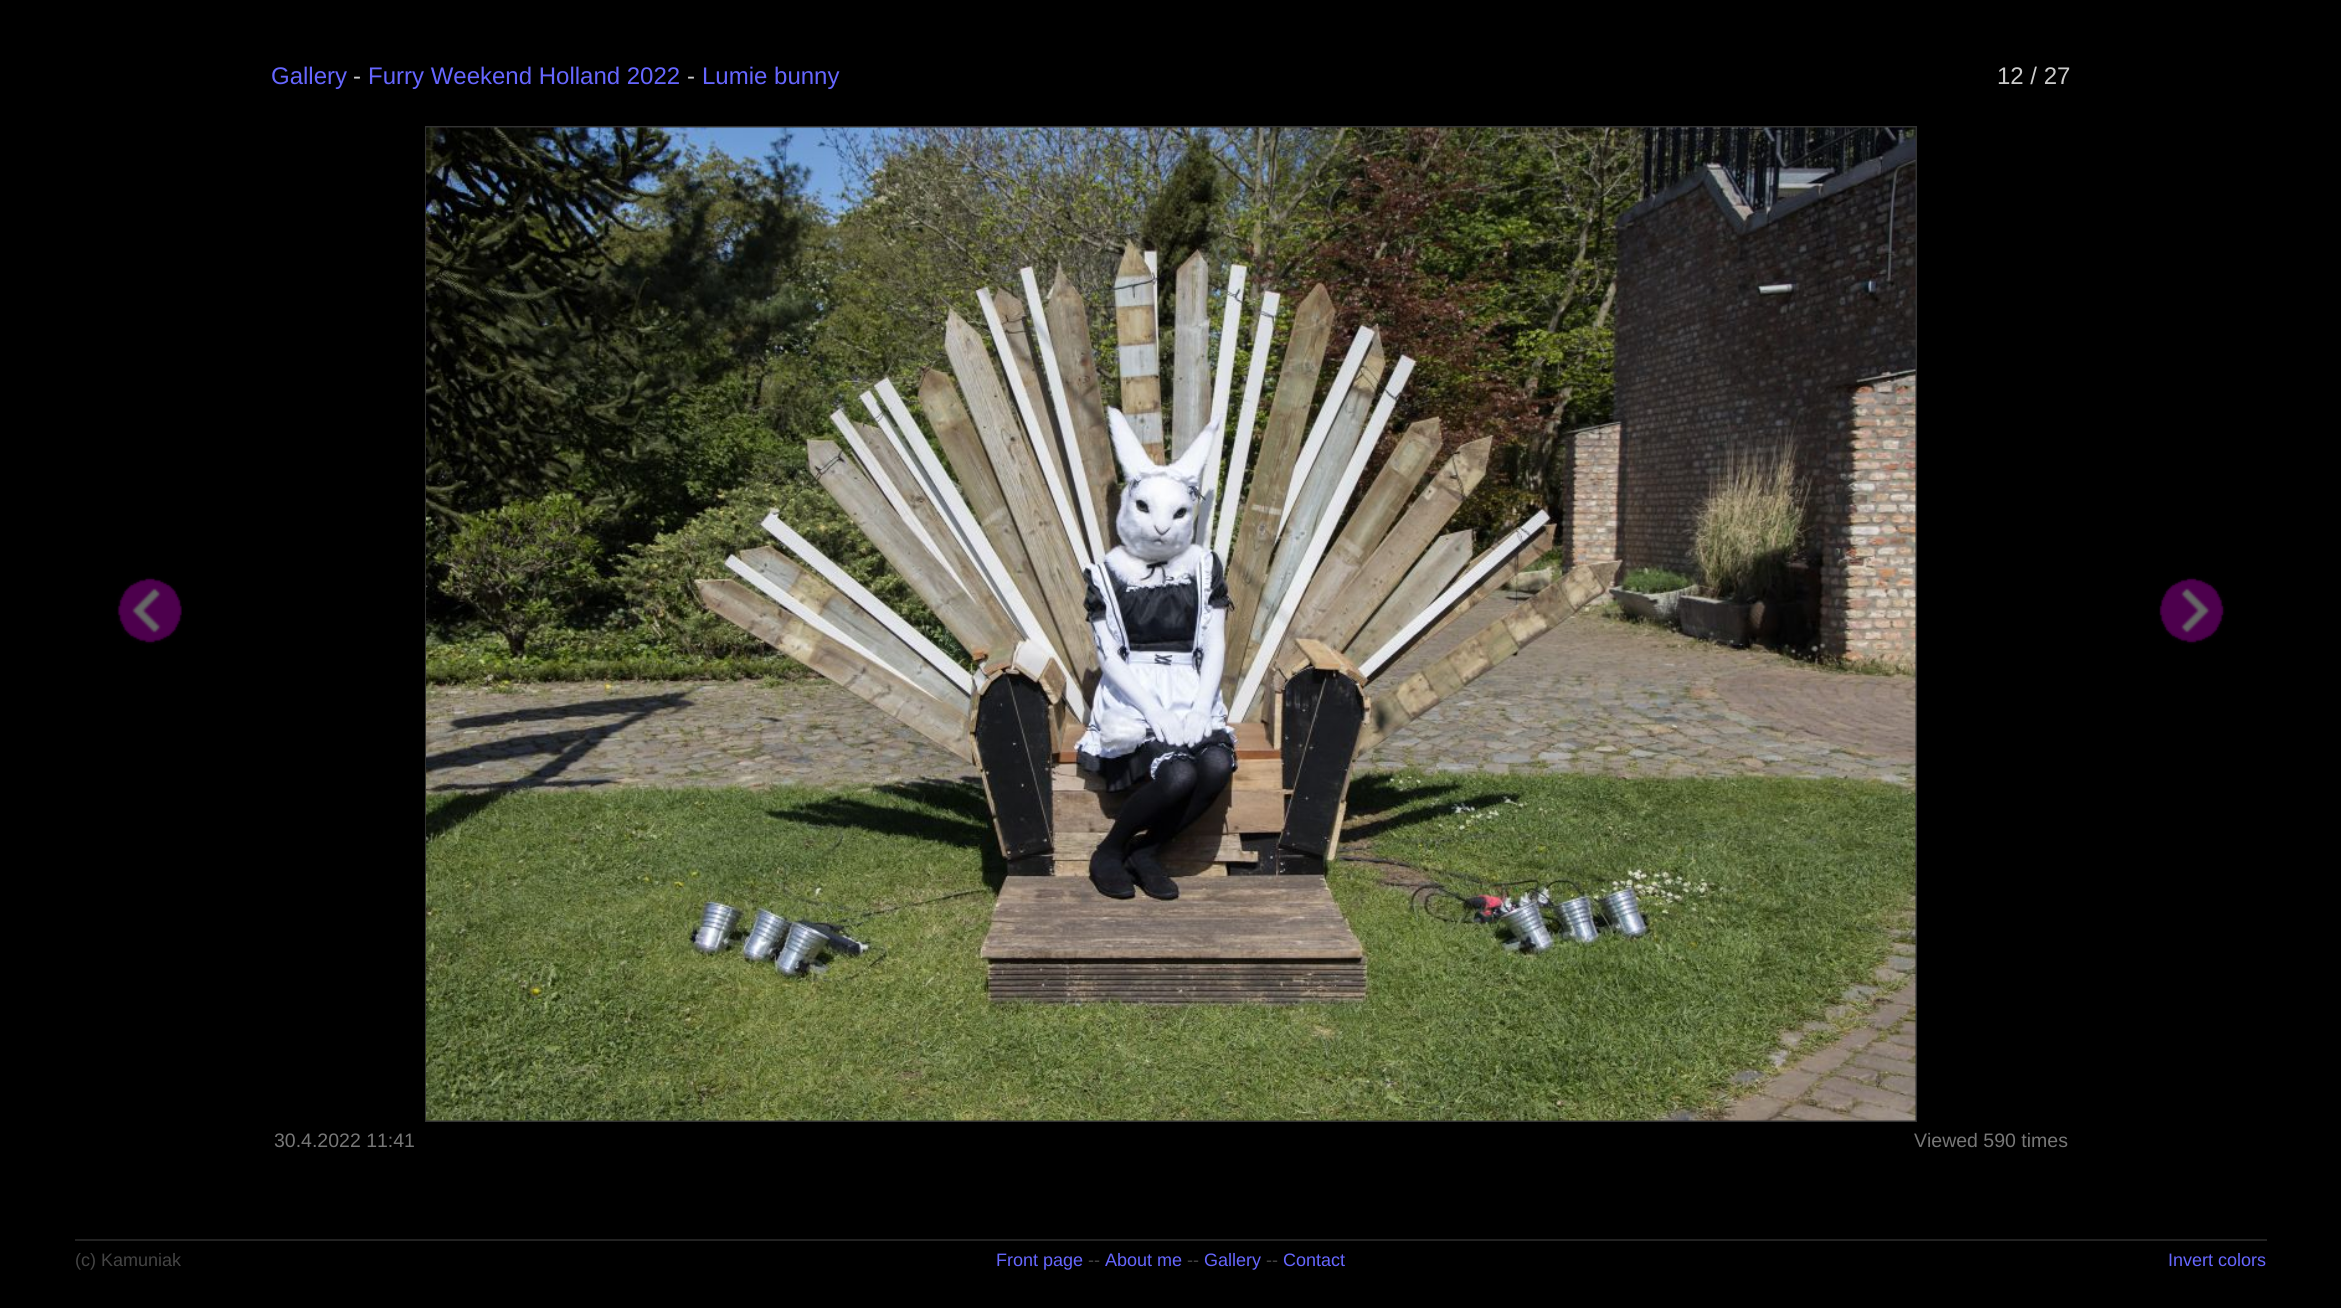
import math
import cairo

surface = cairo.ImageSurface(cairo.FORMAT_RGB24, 2341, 1308)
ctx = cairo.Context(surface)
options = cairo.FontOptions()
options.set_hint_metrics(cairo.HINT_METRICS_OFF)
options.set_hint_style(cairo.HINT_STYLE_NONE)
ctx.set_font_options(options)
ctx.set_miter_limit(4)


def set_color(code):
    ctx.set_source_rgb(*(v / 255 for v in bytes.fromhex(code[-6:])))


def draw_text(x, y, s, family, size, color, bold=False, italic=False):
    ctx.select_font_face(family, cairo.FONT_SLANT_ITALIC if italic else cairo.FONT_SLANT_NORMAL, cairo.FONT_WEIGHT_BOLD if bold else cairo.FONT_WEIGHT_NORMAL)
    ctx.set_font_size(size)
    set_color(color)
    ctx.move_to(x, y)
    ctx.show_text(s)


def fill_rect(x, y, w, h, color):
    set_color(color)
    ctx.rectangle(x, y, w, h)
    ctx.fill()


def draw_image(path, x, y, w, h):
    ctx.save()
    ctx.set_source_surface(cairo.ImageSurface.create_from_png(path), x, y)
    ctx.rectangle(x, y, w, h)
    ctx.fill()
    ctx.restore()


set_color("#000000")
ctx.paint()
draw_image("assets/img1.png", 117, 577, 65, 67)
draw_text(271, 84, "Gallery", "Liberation Sans", 24, "#6666ff")
draw_text(353, 84, "-", "Liberation Sans", 24, "#cccccc")
draw_text(368, 84, "Furry Weekend Holland 2022", "Liberation Sans", 24, "#6666ff")
draw_text(687, 84, "-", "Liberation Sans", 24, "#cccccc")
draw_text(702, 84, "Lumie bunny", "Liberation Sans", 24, "#6666ff")
draw_text(1997, 84, "12 / 27", "Liberation Sans", 24, "#cccccc")
ctx.rectangle(426, 127, 1490, 994)
set_color("#333333")
ctx.stroke()
draw_image("assets/img2.png", 426, 127, 1490, 994)
draw_text(274, 1147, "30.4.2022 11:41", "Liberation Sans", 19.5, "#777777")
draw_text(1914, 1147, "Viewed 590 times", "Liberation Sans", 19.5, "#777777")
draw_image("assets/img3.png", 2159, 577, 66, 67)
fill_rect(75, 1239, 2192, 2, "#222222")
draw_text(75, 1266, "(c) Kamuniak", "Liberation Sans", 18, "#444444")
draw_text(996, 1266, "Front page", "Liberation Sans", 18, "#6666ff")
draw_text(1088, 1266, "--", "Liberation Sans", 18, "#444444")
draw_text(1105, 1266, "About me", "Liberation Sans", 18, "#6666ff")
draw_text(1187, 1266, "--", "Liberation Sans", 18, "#444444")
draw_text(1204, 1266, "Gallery", "Liberation Sans", 18, "#6666ff")
draw_text(1266, 1266, "--", "Liberation Sans", 18, "#444444")
draw_text(1283, 1266, "Contact", "Liberation Sans", 18, "#6666ff")
draw_text(2168, 1266, "Invert colors", "Liberation Sans", 18, "#6666ff")
surface.write_to_png("output.png")
